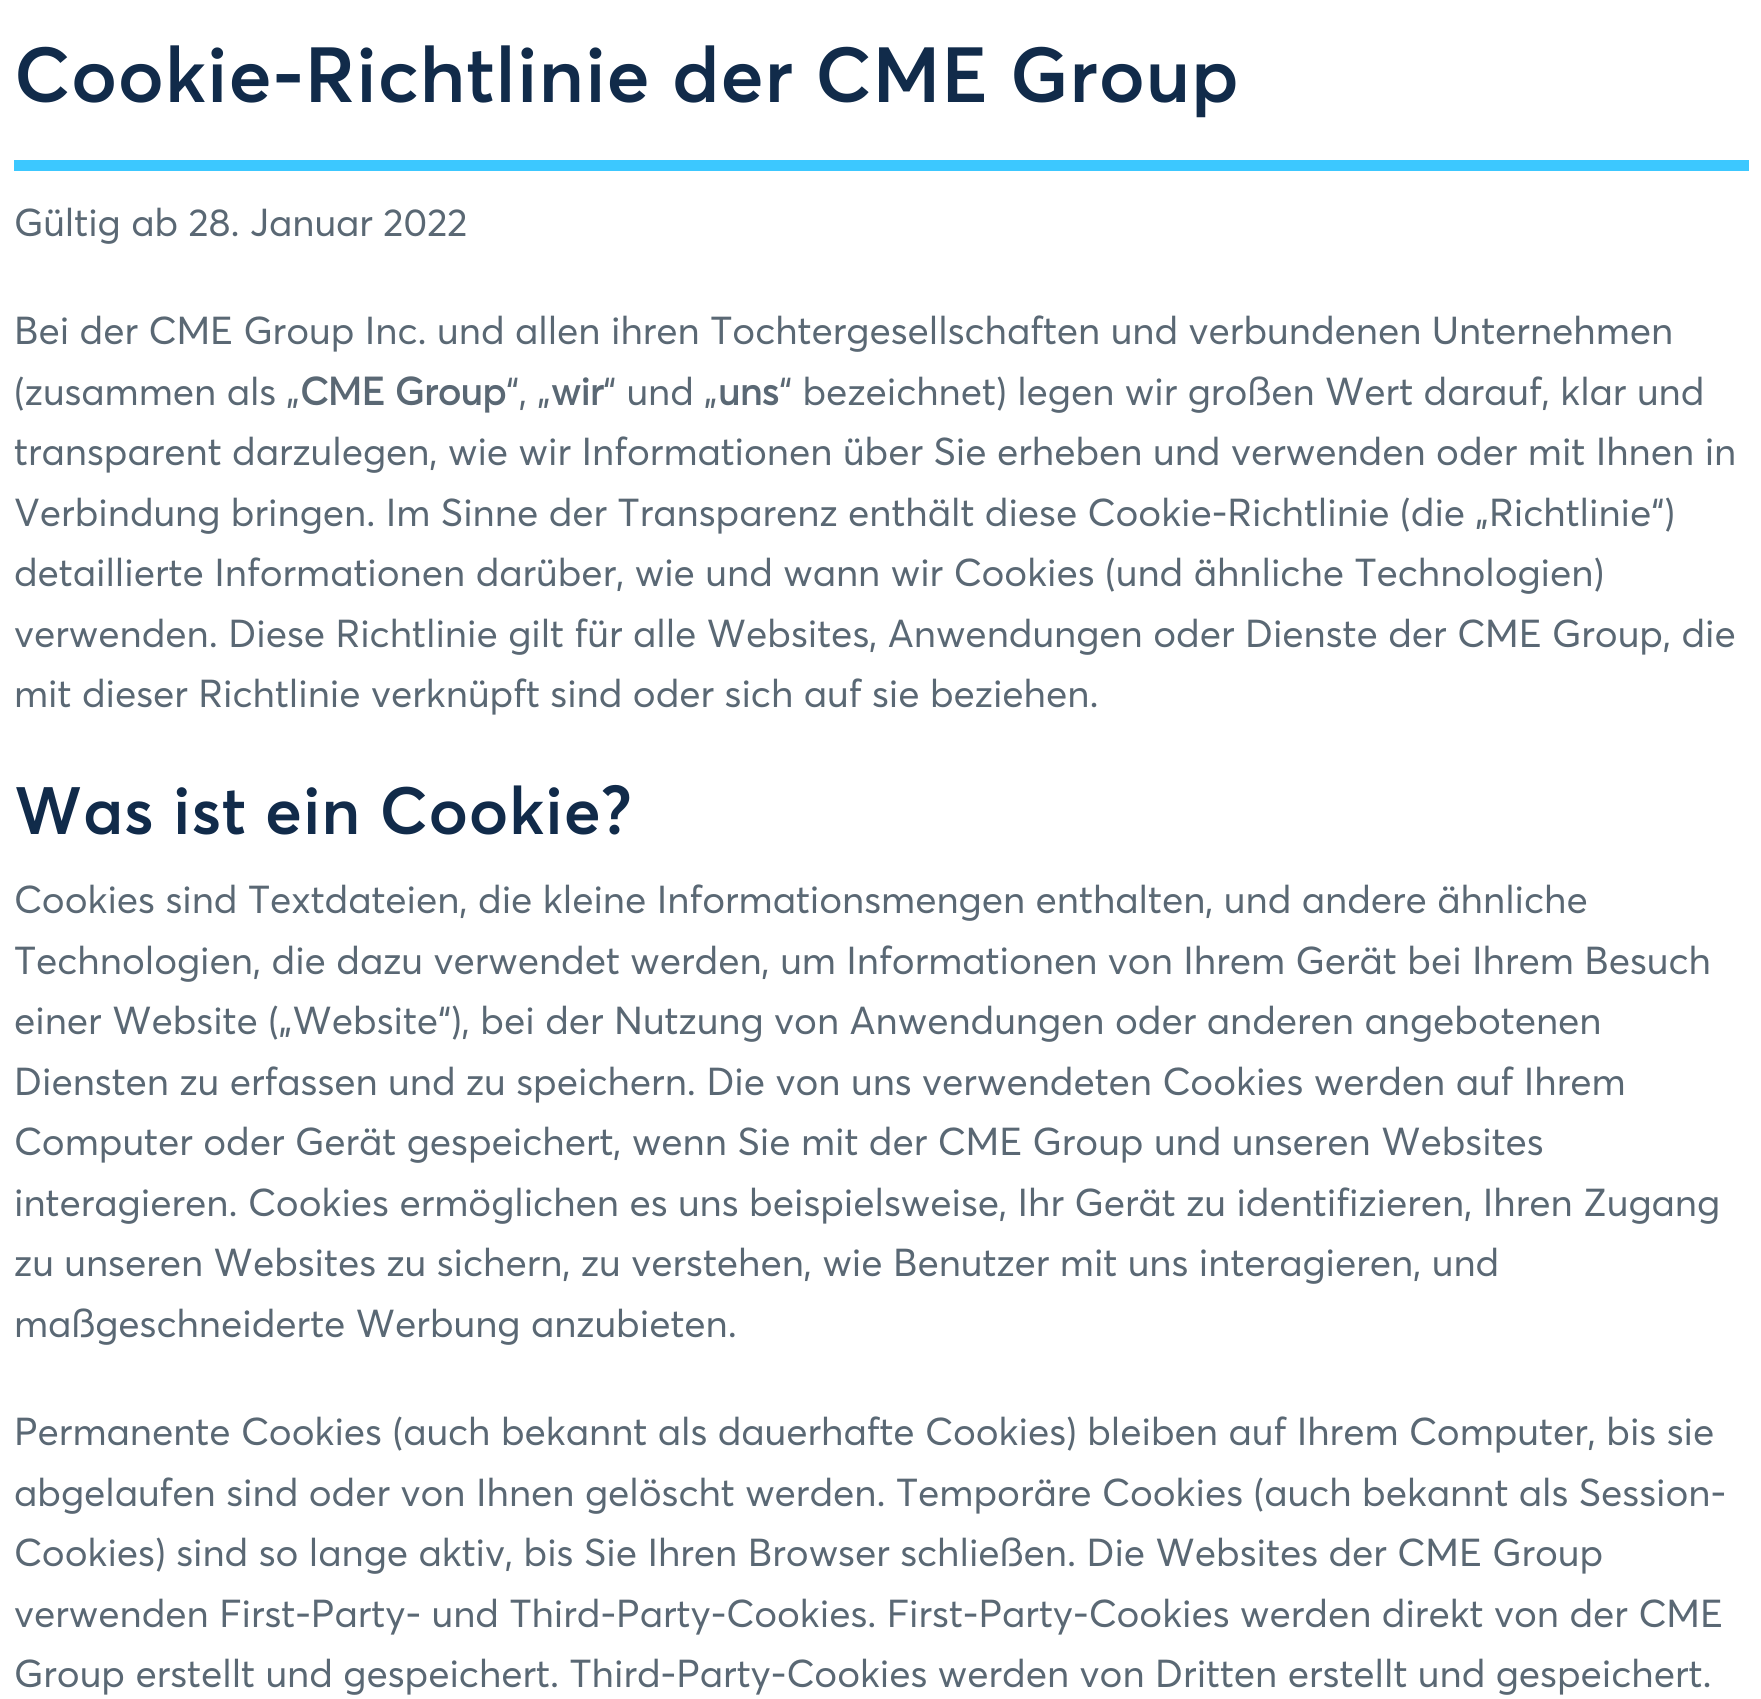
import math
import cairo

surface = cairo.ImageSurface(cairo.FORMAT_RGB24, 1761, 1699)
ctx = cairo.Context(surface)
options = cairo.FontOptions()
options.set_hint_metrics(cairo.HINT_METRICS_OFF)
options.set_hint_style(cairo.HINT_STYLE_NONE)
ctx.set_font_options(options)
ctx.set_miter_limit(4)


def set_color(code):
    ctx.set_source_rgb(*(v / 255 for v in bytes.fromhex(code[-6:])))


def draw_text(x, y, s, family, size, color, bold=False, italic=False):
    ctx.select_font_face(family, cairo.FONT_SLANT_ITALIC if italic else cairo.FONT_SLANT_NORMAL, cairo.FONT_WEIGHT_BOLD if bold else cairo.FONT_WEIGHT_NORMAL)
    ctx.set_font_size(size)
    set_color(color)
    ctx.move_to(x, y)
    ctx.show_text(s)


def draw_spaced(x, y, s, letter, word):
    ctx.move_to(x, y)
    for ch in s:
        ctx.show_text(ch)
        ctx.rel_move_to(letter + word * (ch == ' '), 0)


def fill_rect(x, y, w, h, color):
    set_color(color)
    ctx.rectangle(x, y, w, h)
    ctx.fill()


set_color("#ffffff")
ctx.paint()
fill_rect(14, 160, 1735, 11, "#3cc8ff")
ctx.select_font_face("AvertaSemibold")
ctx.set_font_size(77)
set_color("#112b4a")
draw_spaced(14, 102, "Cookie-Richtlinie der CME Group", 0.75, 0)
draw_text(14, 236, "Gültig ab 28. Januar 2022", "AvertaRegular", 38.5, "#5a6874")
draw_text(14, 344, "Bei der CME Group Inc. und allen ihren Tochtergesellschaften und verbundenen Unternehmen", "AvertaRegular", 38.5, "#5a6874")
draw_text(14, 405, "(zusammen als „", "AvertaRegular", 38.5, "#5a6874")
draw_text(300, 405, "CME Group", "AvertaRegular", 38.5, "#5a6874", bold=True)
draw_text(506, 405, "“, „", "AvertaRegular", 38.5, "#5a6874")
draw_text(551, 405, "wir", "AvertaRegular", 38.5, "#5a6874", bold=True)
draw_text(603, 405, "“ und „", "AvertaRegular", 38.5, "#5a6874")
draw_text(718, 405, "uns", "AvertaRegular", 38.5, "#5a6874", bold=True)
draw_text(779, 405, "“ bezeichnet) legen wir großen Wert darauf, klar und", "AvertaRegular", 38.5, "#5a6874")
draw_text(14, 465, "transparent darzulegen, wie wir Informationen über Sie erheben und verwenden oder mit Ihnen in", "AvertaRegular", 38.5, "#5a6874")
draw_text(14, 526, "Verbindung bringen. Im Sinne der Transparenz enthält diese Cookie-Richtlinie (die „Richtlinie“)", "AvertaRegular", 38.5, "#5a6874")
draw_text(14, 586, "detaillierte Informationen darüber, wie und wann wir Cookies (und ähnliche Technologien)", "AvertaRegular", 38.5, "#5a6874")
draw_text(14, 647, "verwenden. Diese Richtlinie gilt für alle Websites, Anwendungen oder Dienste der CME Group, die", "AvertaRegular", 38.5, "#5a6874")
draw_text(14, 707, "mit dieser Richtlinie verknüpft sind oder sich auf sie beziehen.", "AvertaRegular", 38.5, "#5a6874")
ctx.select_font_face("AvertaSemibold")
ctx.set_font_size(66)
set_color("#112b4a")
draw_spaced(14, 834, "Was ist ein Cookie?", 0.7, 0)
draw_text(14, 913, "Cookies sind Textdateien, die kleine Informationsmengen enthalten, und andere ähnliche", "AvertaRegular", 38.5, "#5a6874")
draw_text(14, 974, "Technologien, die dazu verwendet werden, um Informationen von Ihrem Gerät bei Ihrem Besuch", "AvertaRegular", 38.5, "#5a6874")
draw_text(14, 1034, "einer Website („Website“), bei der Nutzung von Anwendungen oder anderen angebotenen", "AvertaRegular", 38.5, "#5a6874")
draw_text(14, 1095, "Diensten zu erfassen und zu speichern. Die von uns verwendeten Cookies werden auf Ihrem", "AvertaRegular", 38.5, "#5a6874")
draw_text(14, 1155, "Computer oder Gerät gespeichert, wenn Sie mit der CME Group und unseren Websites", "AvertaRegular", 38.5, "#5a6874")
draw_text(14, 1216, "interagieren. Cookies ermöglichen es uns beispielsweise, Ihr Gerät zu identifizieren, Ihren Zugang", "AvertaRegular", 38.5, "#5a6874")
draw_text(14, 1276, "zu unseren Websites zu sichern, zu verstehen, wie Benutzer mit uns interagieren, und", "AvertaRegular", 38.5, "#5a6874")
draw_text(14, 1337, "maßgeschneiderte Werbung anzubieten.", "AvertaRegular", 38.5, "#5a6874")
draw_text(14, 1445, "Permanente Cookies (auch bekannt als dauerhafte Cookies) bleiben auf Ihrem Computer, bis sie", "AvertaRegular", 38.5, "#5a6874")
draw_text(14, 1506, "abgelaufen sind oder von Ihnen gelöscht werden. Temporäre Cookies (auch bekannt als Session-", "AvertaRegular", 38.5, "#5a6874")
draw_text(14, 1566, "Cookies) sind so lange aktiv, bis Sie Ihren Browser schließen. Die Websites der CME Group", "AvertaRegular", 38.5, "#5a6874")
draw_text(14, 1627, "verwenden First-Party- und Third-Party-Cookies. First-Party-Cookies werden direkt von der CME", "AvertaRegular", 38.5, "#5a6874")
draw_text(14, 1687, "Group erstellt und gespeichert. Third-Party-Cookies werden von Dritten erstellt und gespeichert.", "AvertaRegular", 38.5, "#5a6874")
surface.write_to_png("output.png")
